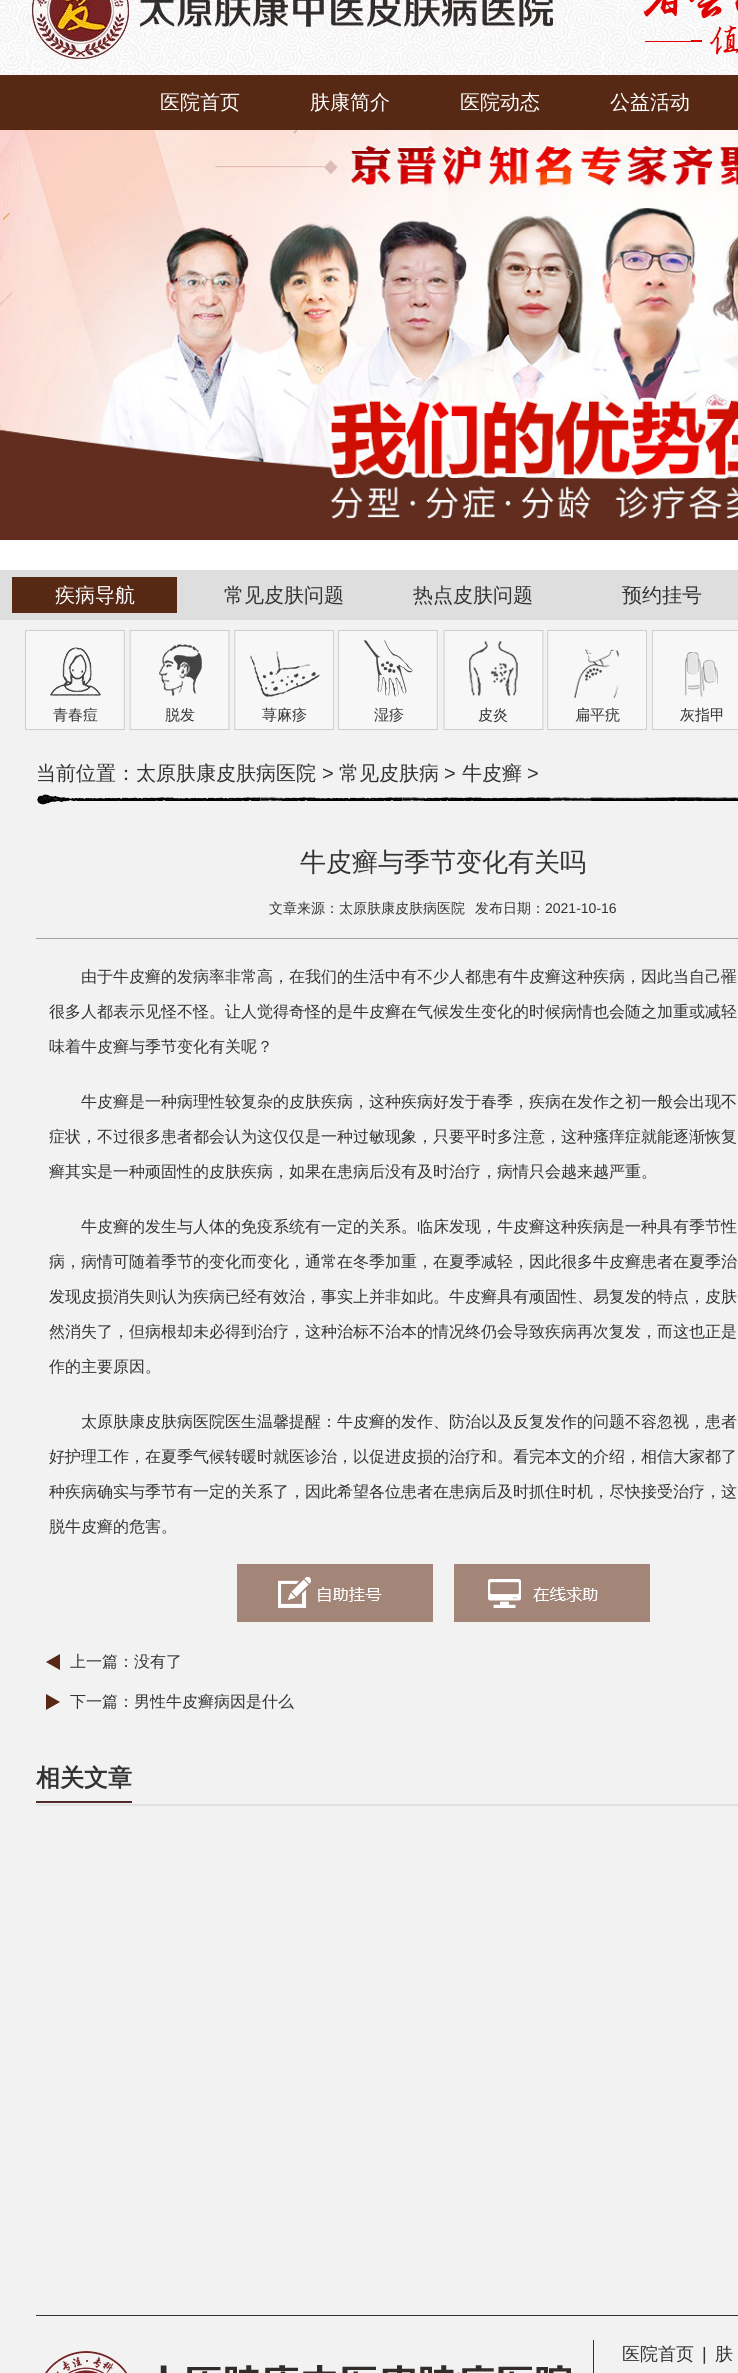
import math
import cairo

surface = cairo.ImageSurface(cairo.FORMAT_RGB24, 738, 2373)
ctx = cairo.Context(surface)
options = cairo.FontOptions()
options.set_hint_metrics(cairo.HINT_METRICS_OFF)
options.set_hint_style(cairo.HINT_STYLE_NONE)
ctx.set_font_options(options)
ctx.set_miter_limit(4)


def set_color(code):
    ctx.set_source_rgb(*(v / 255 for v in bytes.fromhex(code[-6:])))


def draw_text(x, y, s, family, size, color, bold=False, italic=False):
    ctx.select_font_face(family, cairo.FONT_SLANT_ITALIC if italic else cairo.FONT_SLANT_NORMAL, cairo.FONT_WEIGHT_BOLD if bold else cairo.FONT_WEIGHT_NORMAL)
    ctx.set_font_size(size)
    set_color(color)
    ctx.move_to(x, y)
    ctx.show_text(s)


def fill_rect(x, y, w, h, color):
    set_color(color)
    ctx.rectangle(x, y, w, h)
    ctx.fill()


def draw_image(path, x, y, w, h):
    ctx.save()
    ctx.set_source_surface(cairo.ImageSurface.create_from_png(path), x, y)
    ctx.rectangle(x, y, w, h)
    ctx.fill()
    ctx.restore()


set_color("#ffffff")
ctx.paint()
draw_image("assets/img1.png", 0, 0, 738, 75)
fill_rect(0, 75, 738, 55, "#572914")
draw_text(160, 109, "医院首页", "WenQuanYi Zen Hei Medium", 20, "#ffffff")
draw_text(310, 109, "肤康简介", "WenQuanYi Zen Hei Medium", 20, "#ffffff")
draw_text(460, 109, "医院动态", "WenQuanYi Zen Hei Medium", 20, "#ffffff")
draw_text(610, 109, "公益活动", "WenQuanYi Zen Hei Medium", 20, "#ffffff")
draw_image("assets/img2.png", 0, 130, 738, 410)
fill_rect(0, 620, 738, 1753, "#f2f2f2")
fill_rect(0, 570, 738, 50, "#dedede")
fill_rect(12, 577, 165, 36, "#572914")
draw_text(55, 602, "疾病导航", "WenQuanYi Zen Hei Medium", 20, "#ffffff")
draw_text(224, 602, "常见皮肤问题", "WenQuanYi Zen Hei Medium", 20, "#333333")
draw_text(413, 602, "热点皮肤问题", "WenQuanYi Zen Hei Medium", 20, "#333333")
draw_text(622, 602, "预约挂号", "WenQuanYi Zen Hei Medium", 20, "#333333")
draw_image("assets/img3.png", 25, 630, 100, 100)
draw_text(53, 720, "青春痘", "WenQuanYi Zen Hei Medium", 15, "#333333")
draw_image("assets/img4.png", 129, 630, 101, 100)
draw_text(165, 720, "脱发", "WenQuanYi Zen Hei Medium", 15, "#333333")
draw_image("assets/img5.png", 234, 630, 100, 100)
draw_text(262, 720, "荨麻疹", "WenQuanYi Zen Hei Medium", 15, "#333333")
draw_image("assets/img6.png", 338, 630, 100, 100)
draw_text(374, 720, "湿疹", "WenQuanYi Zen Hei Medium", 15, "#333333")
draw_image("assets/img7.png", 443, 630, 101, 100)
draw_text(478, 720, "皮炎", "WenQuanYi Zen Hei Medium", 15, "#333333")
draw_image("assets/img8.png", 547, 630, 100, 100)
draw_text(575, 720, "扁平疣", "WenQuanYi Zen Hei Medium", 15, "#333333")
draw_image("assets/img9.png", 652, 630, 86, 100)
draw_text(680, 720, "灰指甲", "WenQuanYi Zen Hei Medium", 15, "#333333")
draw_image("assets/img10.png", 37, 794, 701, 11)
draw_text(36, 780, "当前位置：太原肤康皮肤病医院", "WenQuanYi Zen Hei Medium", 20, "#333333")
draw_text(322, 780, ">", "Liberation Sans", 20, "#333333")
draw_text(339, 780, "常见皮肤病", "WenQuanYi Zen Hei Medium", 20, "#333333")
draw_text(444, 780, ">", "Liberation Sans", 20, "#333333")
draw_text(462, 780, "牛皮癣", "WenQuanYi Zen Hei Medium", 20, "#333333")
draw_text(527, 780, ">", "Liberation Sans", 20, "#333333")
draw_text(300, 871, "牛皮癣与季节变化有关吗", "WenQuanYi Zen Hei Medium", 26, "#333333")
fill_rect(36, 938, 702, 1, "#a0a0a0")
draw_text(269, 913, "文章来源：太原肤康皮肤病医院", "WenQuanYi Zen Hei Medium", 14, "#333333")
draw_text(475, 913, "发布日期：", "WenQuanYi Zen Hei Medium", 14, "#333333")
draw_text(545, 913, "2021-10-16", "Liberation Sans", 14, "#333333")
draw_text(81, 982, "由于牛皮癣的发病率非常高，在我们的生活中有不少人都患有牛皮癣这种疾病，因此当自己罹", "WenQuanYi Zen Hei Medium", 16, "#333333")
draw_text(49, 1017, "很多人都表示见怪不怪。让人觉得奇怪的是牛皮癣在气候发生变化的时候病情也会随之加重或减轻", "WenQuanYi Zen Hei Medium", 16, "#333333")
draw_text(49, 1052, "味着牛皮癣与季节变化有关呢？", "WenQuanYi Zen Hei Medium", 16, "#333333")
draw_text(81, 1107, "牛皮癣是一种病理性较复杂的皮肤疾病，这种疾病好发于春季，疾病在发作之初一般会出现不", "WenQuanYi Zen Hei Medium", 16, "#333333")
draw_text(49, 1142, "症状，不过很多患者都会认为这仅仅是一种过敏现象，只要平时多注意，这种瘙痒症就能逐渐恢复", "WenQuanYi Zen Hei Medium", 16, "#333333")
draw_text(49, 1177, "癣其实是一种顽固性的皮肤疾病，如果在患病后没有及时治疗，病情只会越来越严重。", "WenQuanYi Zen Hei Medium", 16, "#333333")
draw_text(81, 1232, "牛皮癣的发生与人体的免疫系统有一定的关系。临床发现，牛皮癣这种疾病是一种具有季节性", "WenQuanYi Zen Hei Medium", 16, "#333333")
draw_text(49, 1267, "病，病情可随着季节的变化而变化，通常在冬季加重，在夏季减轻，因此很多牛皮癣患者在夏季治", "WenQuanYi Zen Hei Medium", 16, "#333333")
draw_text(49, 1302, "发现皮损消失则认为疾病已经有效治，事实上并非如此。牛皮癣具有顽固性、易复发的特点，皮肤", "WenQuanYi Zen Hei Medium", 16, "#333333")
draw_text(49, 1337, "然消失了，但病根却未必得到治疗，这种治标不治本的情况终仍会导致疾病再次复发，而这也正是", "WenQuanYi Zen Hei Medium", 16, "#333333")
draw_text(49, 1372, "作的主要原因。", "WenQuanYi Zen Hei Medium", 16, "#333333")
draw_text(81, 1427, "太原肤康皮肤病医院医生温馨提醒：牛皮癣的发作、防治以及反复发作的问题不容忽视，患者", "WenQuanYi Zen Hei Medium", 16, "#333333")
draw_text(49, 1462, "好护理工作，在夏季气候转暖时就医诊治，以促进皮损的治疗和。看完本文的介绍，相信大家都了", "WenQuanYi Zen Hei Medium", 16, "#333333")
draw_text(49, 1497, "种疾病确实与季节有一定的关系了，因此希望各位患者在患病后及时抓住时机，尽快接受治疗，这", "WenQuanYi Zen Hei Medium", 16, "#333333")
draw_text(49, 1532, "脱牛皮癣的危害。", "WenQuanYi Zen Hei Medium", 16, "#333333")
draw_image("assets/img11.png", 237, 1564, 196, 58)
draw_image("assets/img12.png", 454, 1564, 196, 58)
draw_image("assets/img13.png", 46, 1654, 14, 16)
draw_text(70, 1667, "上一篇：没有了", "WenQuanYi Zen Hei Medium", 16, "#333333")
draw_image("assets/img14.png", 46, 1694, 14, 16)
draw_text(70, 1707, "下一篇：男性牛皮癣病因是什么", "WenQuanYi Zen Hei Medium", 16, "#333333")
fill_rect(36, 1804, 702, 2, "#e1e1e1")
draw_text(36, 1786, "相关文章", "WenQuanYi Zen Hei", 24, "#333333", bold=True)
fill_rect(36, 1801, 96, 2, "#512b2a")
fill_rect(36, 2315, 702, 1, "#333333")
draw_image("assets/img15.png", 45, 2351, 526, 22)
fill_rect(593, 2340, 1, 33, "#333333")
draw_text(622, 2360, "医院首页", "WenQuanYi Zen Hei Medium", 18, "#333333")
draw_text(702, 2360, "|", "Liberation Sans", 18, "#333333")
draw_text(715, 2360, "肤", "WenQuanYi Zen Hei Medium", 18, "#333333")
surface.write_to_png("output.png")
